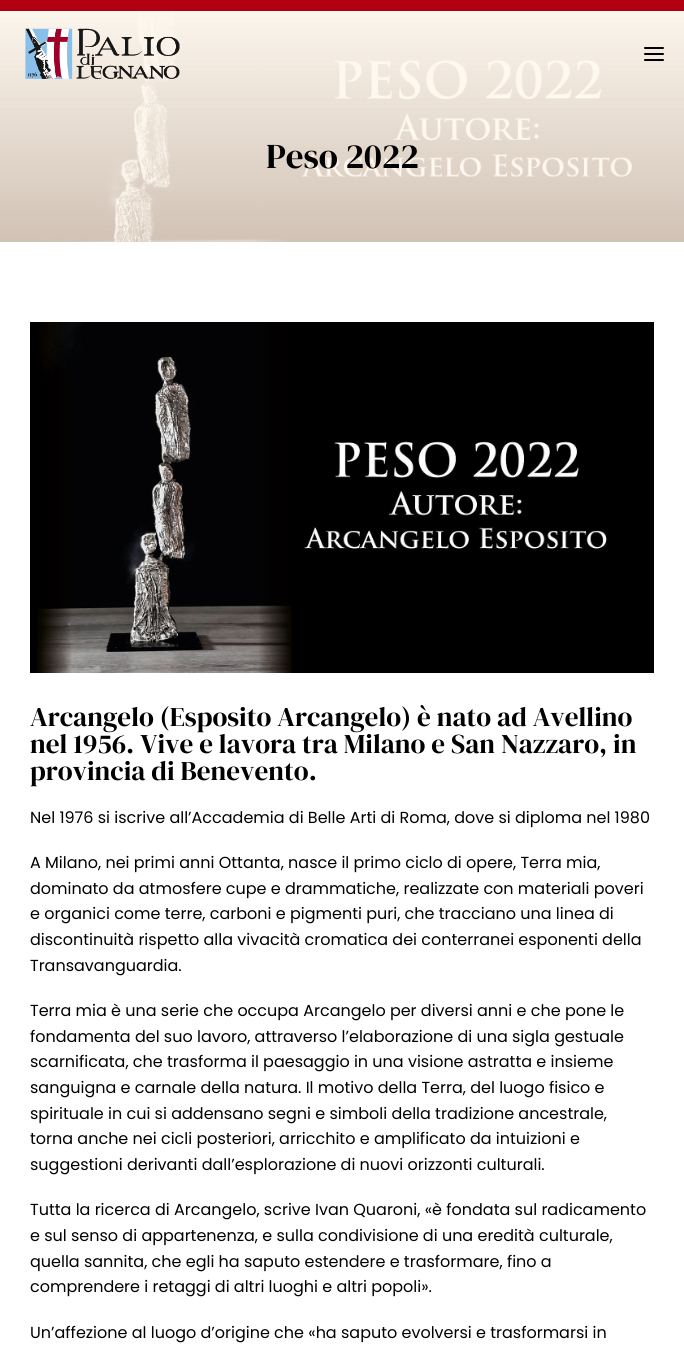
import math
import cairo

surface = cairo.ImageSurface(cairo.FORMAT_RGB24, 684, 1350)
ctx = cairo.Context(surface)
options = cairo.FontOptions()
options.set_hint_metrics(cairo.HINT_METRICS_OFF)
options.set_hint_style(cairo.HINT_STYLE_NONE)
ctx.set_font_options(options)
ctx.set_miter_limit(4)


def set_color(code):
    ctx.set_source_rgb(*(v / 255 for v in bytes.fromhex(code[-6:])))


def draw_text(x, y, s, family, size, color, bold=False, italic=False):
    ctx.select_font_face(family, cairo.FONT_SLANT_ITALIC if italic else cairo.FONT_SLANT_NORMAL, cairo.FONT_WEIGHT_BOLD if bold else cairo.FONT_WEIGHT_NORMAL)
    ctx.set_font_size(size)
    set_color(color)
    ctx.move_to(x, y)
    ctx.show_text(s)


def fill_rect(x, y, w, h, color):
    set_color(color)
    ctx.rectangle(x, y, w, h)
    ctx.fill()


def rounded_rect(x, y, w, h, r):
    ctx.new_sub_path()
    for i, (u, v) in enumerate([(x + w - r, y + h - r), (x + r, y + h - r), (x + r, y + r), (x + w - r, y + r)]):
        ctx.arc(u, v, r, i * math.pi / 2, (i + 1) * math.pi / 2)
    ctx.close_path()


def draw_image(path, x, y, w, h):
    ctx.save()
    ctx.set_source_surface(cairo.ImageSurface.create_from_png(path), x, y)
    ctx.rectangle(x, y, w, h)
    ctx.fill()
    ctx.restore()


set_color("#ffffff")
ctx.paint()
fill_rect(0, 0, 684, 11, "#b20013")
draw_image("assets/img2.png", 0, 11, 684, 231)
draw_image("assets/img1.png", 25, 28, 155, 51)
set_color("#000000")
rounded_rect(644, 47, 20, 2, 1)
ctx.fill()
rounded_rect(644, 53, 20, 2, 1)
ctx.fill()
rounded_rect(644, 59, 20, 2, 1)
ctx.fill()
draw_text(266, 168, "Peso 2022", "DM Serif Display", 35, "#000000")
draw_image("assets/img3.png", 30, 322, 624, 351)
draw_text(30, 726, "Arcangelo (Esposito Arcangelo) è nato ad Avellino", "DM Serif Display", 27.2, "#000000")
draw_text(30, 753, "nel 1956. Vive e lavora tra Milano e San Nazzaro, in", "DM Serif Display", 27.2, "#000000")
draw_text(30, 780, "provincia di Benevento.", "DM Serif Display", 27.2, "#000000")
draw_text(30, 823, "Nel 1976 si iscrive all’Accademia di Belle Arti di Roma, dove si diploma nel 1980", "Poppins", 16, "#000000")
draw_text(30, 868, "A Milano, nei primi anni Ottanta, nasce il primo ciclo di opere, Terra mia,", "Poppins", 16, "#000000")
draw_text(30, 894, "dominato da atmosfere cupe e drammatiche, realizzate con materiali poveri", "Poppins", 16, "#000000")
draw_text(30, 919, "e organici come terre, carboni e pigmenti puri, che tracciano una linea di", "Poppins", 16, "#000000")
draw_text(30, 945, "discontinuità rispetto alla vivacità cromatica dei conterranei esponenti della", "Poppins", 16, "#000000")
draw_text(30, 971, "Transavanguardia.", "Poppins", 16, "#000000")
draw_text(30, 1016, "Terra mia è una serie che occupa Arcangelo per diversi anni e che pone le", "Poppins", 16, "#000000")
draw_text(30, 1042, "fondamenta del suo lavoro, attraverso l’elaborazione di una sigla gestuale", "Poppins", 16, "#000000")
draw_text(30, 1067, "scarnificata, che trasforma il paesaggio in una visione astratta e insieme", "Poppins", 16, "#000000")
draw_text(30, 1093, "sanguigna e carnale della natura. Il motivo della Terra, del luogo fisico e", "Poppins", 16, "#000000")
draw_text(30, 1119, "spirituale in cui si addensano segni e simboli della tradizione ancestrale,", "Poppins", 16, "#000000")
draw_text(30, 1144, "torna anche nei cicli posteriori, arricchito e amplificato da intuizioni e", "Poppins", 16, "#000000")
draw_text(30, 1170, "suggestioni derivanti dall’esplorazione di nuovi orizzonti culturali.", "Poppins", 16, "#000000")
draw_text(30, 1215, "Tutta la ricerca di Arcangelo, scrive Ivan Quaroni, «è fondata sul radicamento", "Poppins", 16, "#000000")
draw_text(30, 1241, "e sul senso di appartenenza, e sulla condivisione di una eredità culturale,", "Poppins", 16, "#000000")
draw_text(30, 1267, "quella sannita, che egli ha saputo estendere e trasformare, fino a", "Poppins", 16, "#000000")
draw_text(30, 1292, "comprendere i retaggi di altri luoghi e altri popoli».", "Poppins", 16, "#000000")
draw_text(30, 1338, "Un’affezione al luogo d’origine che «ha saputo evolversi e trasformarsi in", "Poppins", 16, "#000000")
surface.write_to_png("output.png")
